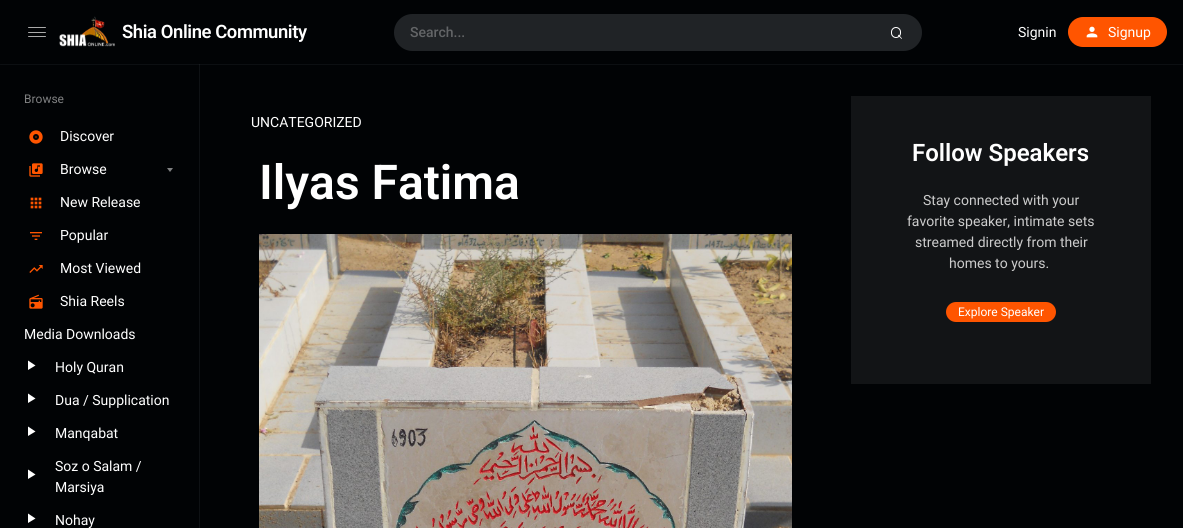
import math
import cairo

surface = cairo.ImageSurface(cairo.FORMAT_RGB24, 1183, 528)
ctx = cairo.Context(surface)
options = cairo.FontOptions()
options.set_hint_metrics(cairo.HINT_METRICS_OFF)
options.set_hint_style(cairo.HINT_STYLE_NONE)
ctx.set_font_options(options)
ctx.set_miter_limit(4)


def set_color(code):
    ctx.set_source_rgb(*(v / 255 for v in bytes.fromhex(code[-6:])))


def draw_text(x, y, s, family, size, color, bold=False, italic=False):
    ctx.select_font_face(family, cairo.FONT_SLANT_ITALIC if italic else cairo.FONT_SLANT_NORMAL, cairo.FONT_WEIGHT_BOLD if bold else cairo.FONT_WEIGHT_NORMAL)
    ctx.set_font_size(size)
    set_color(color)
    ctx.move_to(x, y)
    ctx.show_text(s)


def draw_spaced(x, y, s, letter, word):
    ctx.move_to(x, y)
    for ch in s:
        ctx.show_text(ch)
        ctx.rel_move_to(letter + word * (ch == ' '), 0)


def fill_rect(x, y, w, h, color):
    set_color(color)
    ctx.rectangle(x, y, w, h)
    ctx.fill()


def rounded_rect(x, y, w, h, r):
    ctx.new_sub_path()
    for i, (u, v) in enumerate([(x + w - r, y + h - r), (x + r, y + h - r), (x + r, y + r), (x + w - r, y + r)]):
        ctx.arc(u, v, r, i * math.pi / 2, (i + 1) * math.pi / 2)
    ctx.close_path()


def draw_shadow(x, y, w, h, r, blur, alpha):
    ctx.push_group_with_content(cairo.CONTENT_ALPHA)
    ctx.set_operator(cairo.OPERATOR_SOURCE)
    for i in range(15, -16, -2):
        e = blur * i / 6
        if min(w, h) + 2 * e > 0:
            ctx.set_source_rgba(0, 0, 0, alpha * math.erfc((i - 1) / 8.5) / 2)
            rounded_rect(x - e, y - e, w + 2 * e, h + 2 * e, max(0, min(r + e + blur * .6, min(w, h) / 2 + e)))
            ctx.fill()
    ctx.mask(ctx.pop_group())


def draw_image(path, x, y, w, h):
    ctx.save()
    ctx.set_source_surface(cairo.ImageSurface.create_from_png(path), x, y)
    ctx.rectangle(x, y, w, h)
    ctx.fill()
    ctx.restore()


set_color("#010305")
ctx.paint()
fill_rect(199, 64, 1, 464, "#0e1114")
ctx.save()
ctx.rectangle(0, 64, 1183, 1)
ctx.clip()
set_color("#828c96")
draw_shadow(0, 1, 1183, 64, 0, 0.5, 0.1)
ctx.restore()
set_color("#aaaaaa")
rounded_rect(28, 32, 18, 1, 0.5)
ctx.fill()
rounded_rect(28, 27, 18, 1, 0.5)
ctx.fill()
rounded_rect(28, 36, 18, 1, 0.5)
ctx.fill()
draw_image("assets/img1.png", 59, 16, 56, 31)
ctx.select_font_face("Roboto SemiBold")
ctx.set_font_size(18.4)
set_color("#ffffff")
draw_spaced(122, 38, "Shia Online Community", -0.4, 0)
set_color("#202326")
rounded_rect(394, 14, 528, 37, 18.5)
ctx.fill()
draw_text(410, 37, "Search...", "Roboto Medium", 14, "#636567")
rounded_rect(891.5, 27.5, 9, 10, 4.5)
set_color("#ffffff")
ctx.set_line_width(1)
ctx.stroke()
ctx.new_path()
ctx.move_to(899, 35)
ctx.line_to(902, 38.5)
ctx.curve_to(902, 39.5, 901, 38.5, 899.5, 37)
ctx.line_to(898, 35.5)
ctx.curve_to(898, 35, 898.5, 34.5, 899, 35)
ctx.close_path()
ctx.fill()
draw_text(1018, 37, "Signin", "Roboto", 14, "#ffffff")
set_color("#ff5500")
rounded_rect(1068, 17, 99, 30, 15)
ctx.fill()
draw_image("assets/img2.png", 1086, 26, 12, 12)
draw_text(1108, 37, "Signup", "Roboto", 14, "#ffffff")
draw_text(24, 103, "Browse", "Roboto", 12, "#808182")
draw_image("assets/img3.png", 29, 130, 14, 14)
draw_text(60, 141, "Discover", "Roboto", 14, "#ffffff")
draw_image("assets/img4.png", 29, 163, 14, 14)
draw_text(60, 174, "Browse", "Roboto", 14, "#ffffff")
set_color("#808182")
ctx.new_path()
ctx.move_to(167, 168)
ctx.line_to(173, 168)
ctx.line_to(170, 172)
ctx.close_path()
ctx.fill()
draw_image("assets/img5.png", 30, 197, 12, 12)
draw_text(60, 207, "New Release", "Roboto", 14, "#ffffff")
draw_image("assets/img6.png", 30, 232, 12, 8)
draw_text(60, 240, "Popular", "Roboto", 14, "#ffffff")
draw_image("assets/img7.png", 29, 265, 14, 8)
draw_text(60, 273, "Most Viewed", "Roboto", 14, "#ffffff")
draw_image("assets/img8.png", 29, 294, 14, 15)
draw_text(60, 306, "Shia Reels", "Roboto", 14, "#ffffff")
draw_text(24, 339, "Media Downloads", "Roboto", 14, "#ffffff")
ctx.new_path()
ctx.move_to(28, 360.5)
ctx.line_to(35.5, 365.5)
ctx.line_to(28, 370)
ctx.close_path()
ctx.fill()
draw_text(55, 372, "Holy Quran", "Roboto", 14, "#ffffff")
ctx.new_path()
ctx.move_to(28, 393.5)
ctx.line_to(35.5, 398.5)
ctx.line_to(28, 403)
ctx.close_path()
ctx.fill()
draw_text(55, 405, "Dua / Supplication", "Roboto", 14, "#ffffff")
ctx.new_path()
ctx.move_to(28, 426.5)
ctx.line_to(35.5, 431.5)
ctx.line_to(28, 436)
ctx.close_path()
ctx.fill()
draw_text(55, 438, "Manqabat", "Roboto", 14, "#ffffff")
ctx.new_path()
ctx.move_to(28, 469.5)
ctx.line_to(35.5, 474.5)
ctx.line_to(28, 479)
ctx.close_path()
ctx.fill()
draw_text(55, 471, "Soz o Salam /", "Roboto", 14, "#ffffff")
draw_text(55, 492, "Marsiya", "Roboto", 14, "#ffffff")
ctx.new_path()
ctx.move_to(28, 513.5)
ctx.line_to(35.5, 518.5)
ctx.line_to(28, 523)
ctx.close_path()
ctx.fill()
draw_text(55, 525, "Nohay", "Roboto", 14, "#ffffff")
draw_text(251, 127, "UNCATEGORIZED", "Roboto", 14, "#ffffff")
draw_text(259, 199, "Ilyas Fatima", "Roboto SemiBold", 48, "#ffffff")
draw_image("assets/img9.png", 259, 234, 533, 294)
fill_rect(851, 96, 300, 288, "#121416")
draw_text(912, 161, "Follow Speakers", "Roboto SemiBold", 24, "#ffffff")
draw_text(923, 205, "Stay connected with your", "Roboto", 14, "#cccccc")
draw_text(907, 226, "favorite speaker, intimate sets", "Roboto", 14, "#cccccc")
draw_text(915, 247, "streamed directly from their", "Roboto", 14, "#cccccc")
draw_text(949, 268, "homes to yours.", "Roboto", 14, "#cccccc")
set_color("#ff5500")
rounded_rect(946, 302, 110, 20, 10)
ctx.fill()
draw_text(958, 316, "Explore Speaker", "Roboto", 12, "#ffffff")
surface.write_to_png("output.png")
